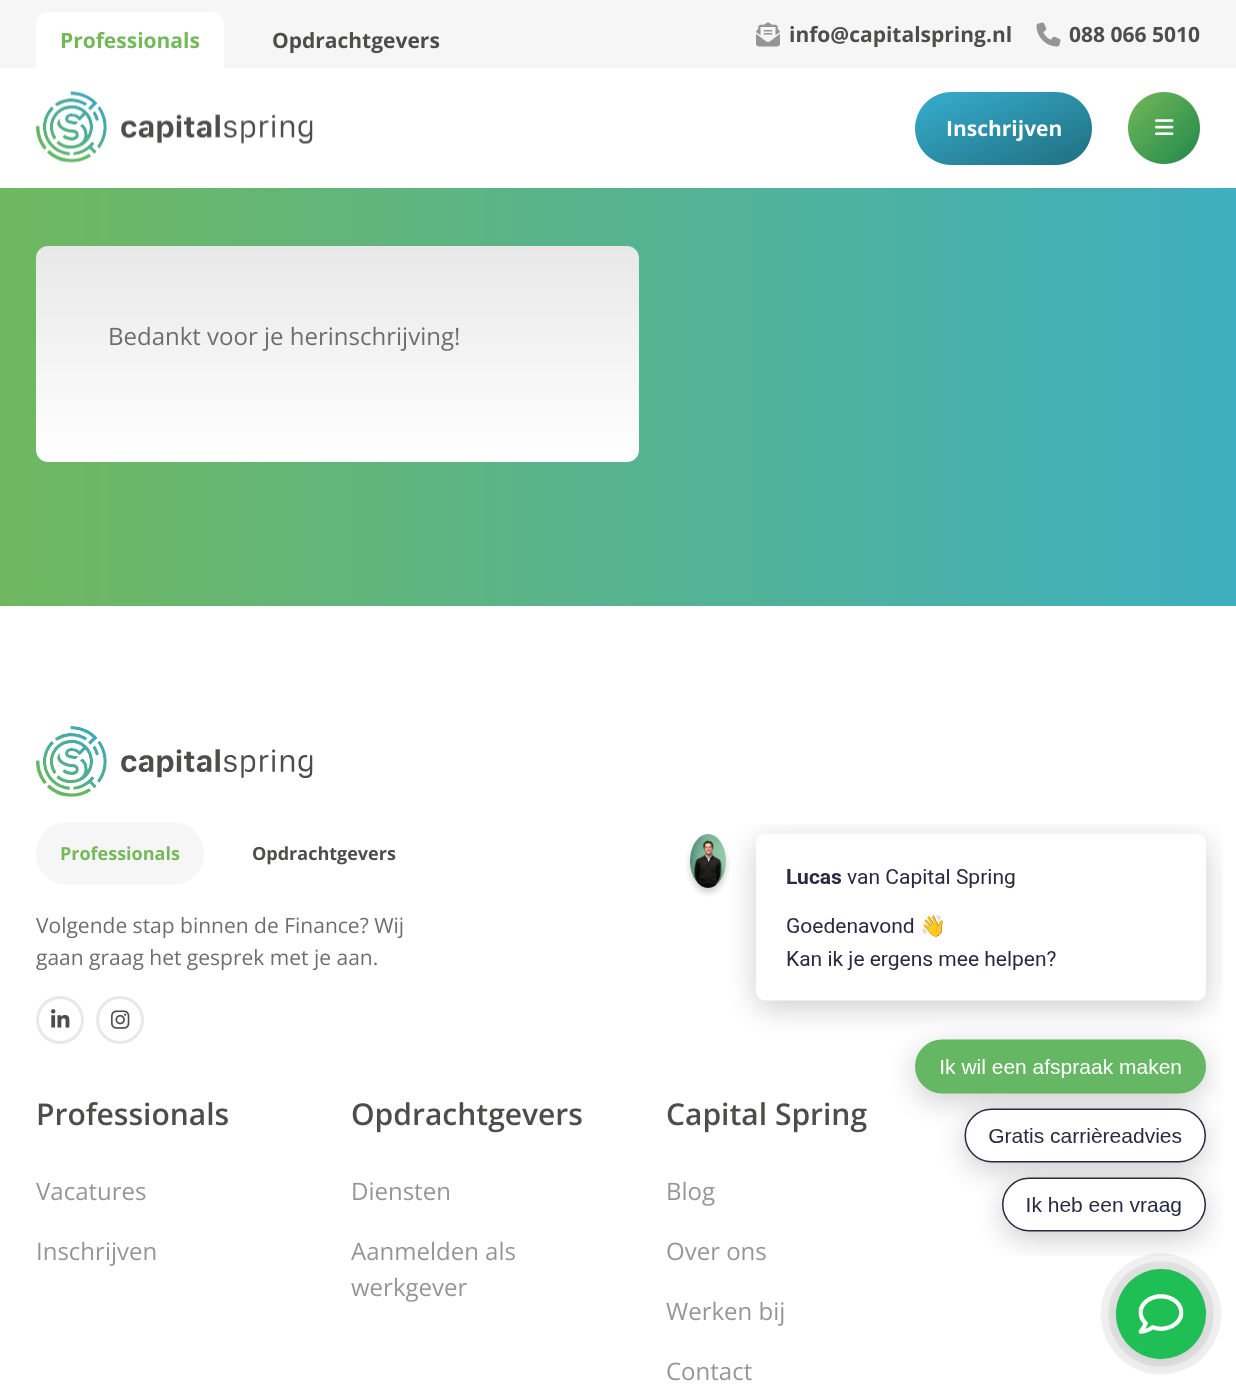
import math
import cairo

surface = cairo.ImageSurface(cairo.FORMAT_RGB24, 1236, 1389)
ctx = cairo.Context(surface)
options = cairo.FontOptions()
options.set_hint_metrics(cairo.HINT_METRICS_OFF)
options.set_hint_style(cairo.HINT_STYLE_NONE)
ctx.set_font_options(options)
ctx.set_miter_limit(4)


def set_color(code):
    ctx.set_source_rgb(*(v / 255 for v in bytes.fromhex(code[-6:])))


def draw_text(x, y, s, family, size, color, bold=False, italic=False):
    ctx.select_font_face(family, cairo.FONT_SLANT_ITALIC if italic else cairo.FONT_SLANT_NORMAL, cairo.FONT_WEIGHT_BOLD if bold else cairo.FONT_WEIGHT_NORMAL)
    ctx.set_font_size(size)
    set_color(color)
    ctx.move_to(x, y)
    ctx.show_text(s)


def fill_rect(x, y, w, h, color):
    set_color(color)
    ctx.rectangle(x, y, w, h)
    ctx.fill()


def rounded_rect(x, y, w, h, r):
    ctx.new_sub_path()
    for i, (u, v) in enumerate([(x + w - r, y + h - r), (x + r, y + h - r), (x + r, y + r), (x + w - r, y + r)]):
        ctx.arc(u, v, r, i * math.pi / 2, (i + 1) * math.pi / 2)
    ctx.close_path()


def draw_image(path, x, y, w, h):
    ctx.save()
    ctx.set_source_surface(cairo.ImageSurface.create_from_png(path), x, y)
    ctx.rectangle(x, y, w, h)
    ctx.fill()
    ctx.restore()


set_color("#ffffff")
ctx.paint()
fill_rect(0, 0, 1236, 68, "#f6f6f6")
set_color("#ffffff")
ctx.new_path()
ctx.move_to(48, 12)
ctx.line_to(212, 12)
ctx.curve_to(218.5, 12, 224, 17.5, 224, 24)
ctx.line_to(224, 68)
ctx.line_to(36, 68)
ctx.line_to(36, 24)
ctx.curve_to(36, 17.5, 41.5, 12, 48, 12)
ctx.close_path()
ctx.fill()
draw_text(60, 48, "Professionals", "Open Sans", 21, "#74b959", bold=True)
draw_text(272, 48, "Opdrachtgevers", "Open Sans", 21, "#4d4e4c", bold=True)
draw_image("assets/img1.png", 756, 22, 24, 25)
draw_text(789, 42, "info@capitalspring.nl", "Open Sans", 21, "#4d4e4c", bold=True)
draw_image("assets/img2.png", 1036, 22, 25, 25)
draw_text(1069, 42, "088 066 5010", "Open Sans", 21, "#4d4e4c", bold=True)
draw_image("assets/img3.png", 36, 91, 277, 72)
gradient = cairo.LinearGradient(977, 66, 1030, 191)
gradient.add_color_stop_rgba(0, 0.216, 0.682, 0.812, 1)
gradient.add_color_stop_rgba(1, 0.122, 0.435, 0.498, 1)
ctx.set_source(gradient)
rounded_rect(915, 92, 177, 73, 36.5)
ctx.fill()
draw_text(946, 136, "Inschrijven", "Open Sans", 21, "#ffffff", bold=True)
gradient = cairo.LinearGradient(1128, 92, 1200, 164)
gradient.add_color_stop_rgba(0, 0.455, 0.725, 0.349, 1)
gradient.add_color_stop_rgba(1, 0.125, 0.533, 0.29, 1)
ctx.set_source(gradient)
ctx.new_path()
ctx.arc(1164, 128, 36, 0, 2 * math.pi)
ctx.fill()
draw_image("assets/img4.png", 1155, 119, 19, 16)
gradient = cairo.LinearGradient(0, 162, 1236, 162)
gradient.add_color_stop_rgba(0, 0.439, 0.722, 0.376, 1)
gradient.add_color_stop_rgba(1, 0.243, 0.686, 0.749, 1)
ctx.set_source(gradient)
ctx.rectangle(0, 188, 1236, 418)
ctx.fill()
gradient = cairo.LinearGradient(338, 246, 338, 462)
gradient.add_color_stop_rgba(0, 0.91, 0.91, 0.91, 1)
gradient.add_color_stop_rgba(1, 1, 1, 1, 1)
ctx.set_source(gradient)
rounded_rect(36, 246, 603, 216, 12)
ctx.fill()
draw_text(108, 345, "Bedankt voor je herinschrijving!", "Open Sans", 24, "#6d6d6d")
draw_image("assets/img5.png", 36, 726, 277, 71)
set_color("#f6f6f6")
rounded_rect(36, 822, 168, 63, 31.5)
ctx.fill()
draw_text(60, 860, "Professionals", "Open Sans", 18, "#74b959", bold=True)
draw_text(252, 860, "Opdrachtgevers", "Open Sans", 18, "#4d4e4c", bold=True)
draw_text(36, 933, "Volgende stap binnen de Finance? Wij", "Open Sans", 21, "#6d6d6d")
draw_text(36, 965, "gaan graag het gesprek met je aan.", "Open Sans", 21, "#6d6d6d")
ctx.new_path()
ctx.arc(60, 1020, 22.5, 0, 2 * math.pi)
set_color("#e8e8e8")
ctx.set_line_width(3)
ctx.stroke()
draw_image("assets/img6.png", 51, 1009, 19, 19)
ctx.arc(120, 1020, 22.5, 0, 2 * math.pi)
ctx.stroke()
draw_image("assets/img7.png", 111, 1010, 19, 19)
draw_text(36, 1125, "Professionals", "Open Sans SemiBold", 30, "#4d4e4c")
draw_text(36, 1200, "Vacatures", "Open Sans", 24, "#959595")
draw_text(36, 1260, "Inschrijven", "Open Sans", 24, "#959595")
draw_text(351, 1125, "Opdrachtgevers", "Open Sans SemiBold", 30, "#4d4e4c")
draw_text(351, 1200, "Diensten", "Open Sans", 24, "#959595")
draw_text(351, 1260, "Aanmelden als", "Open Sans", 24, "#959595")
draw_text(351, 1296, "werkgever", "Open Sans", 24, "#959595")
draw_text(666, 1125, "Capital Spring", "Open Sans SemiBold", 30, "#4d4e4c")
draw_text(666, 1200, "Blog", "Open Sans", 24, "#959595")
draw_text(666, 1260, "Over ons", "Open Sans", 24, "#959595")
draw_text(666, 1320, "Werken bij", "Open Sans", 24, "#959595")
draw_text(666, 1380, "Contact", "Open Sans", 24, "#959595")
draw_image("assets/img9.png", 1100, 1253, 122, 122)
draw_image("assets/img8.png", 686, 824, 537, 432)
surface.write_to_png("output.png")
